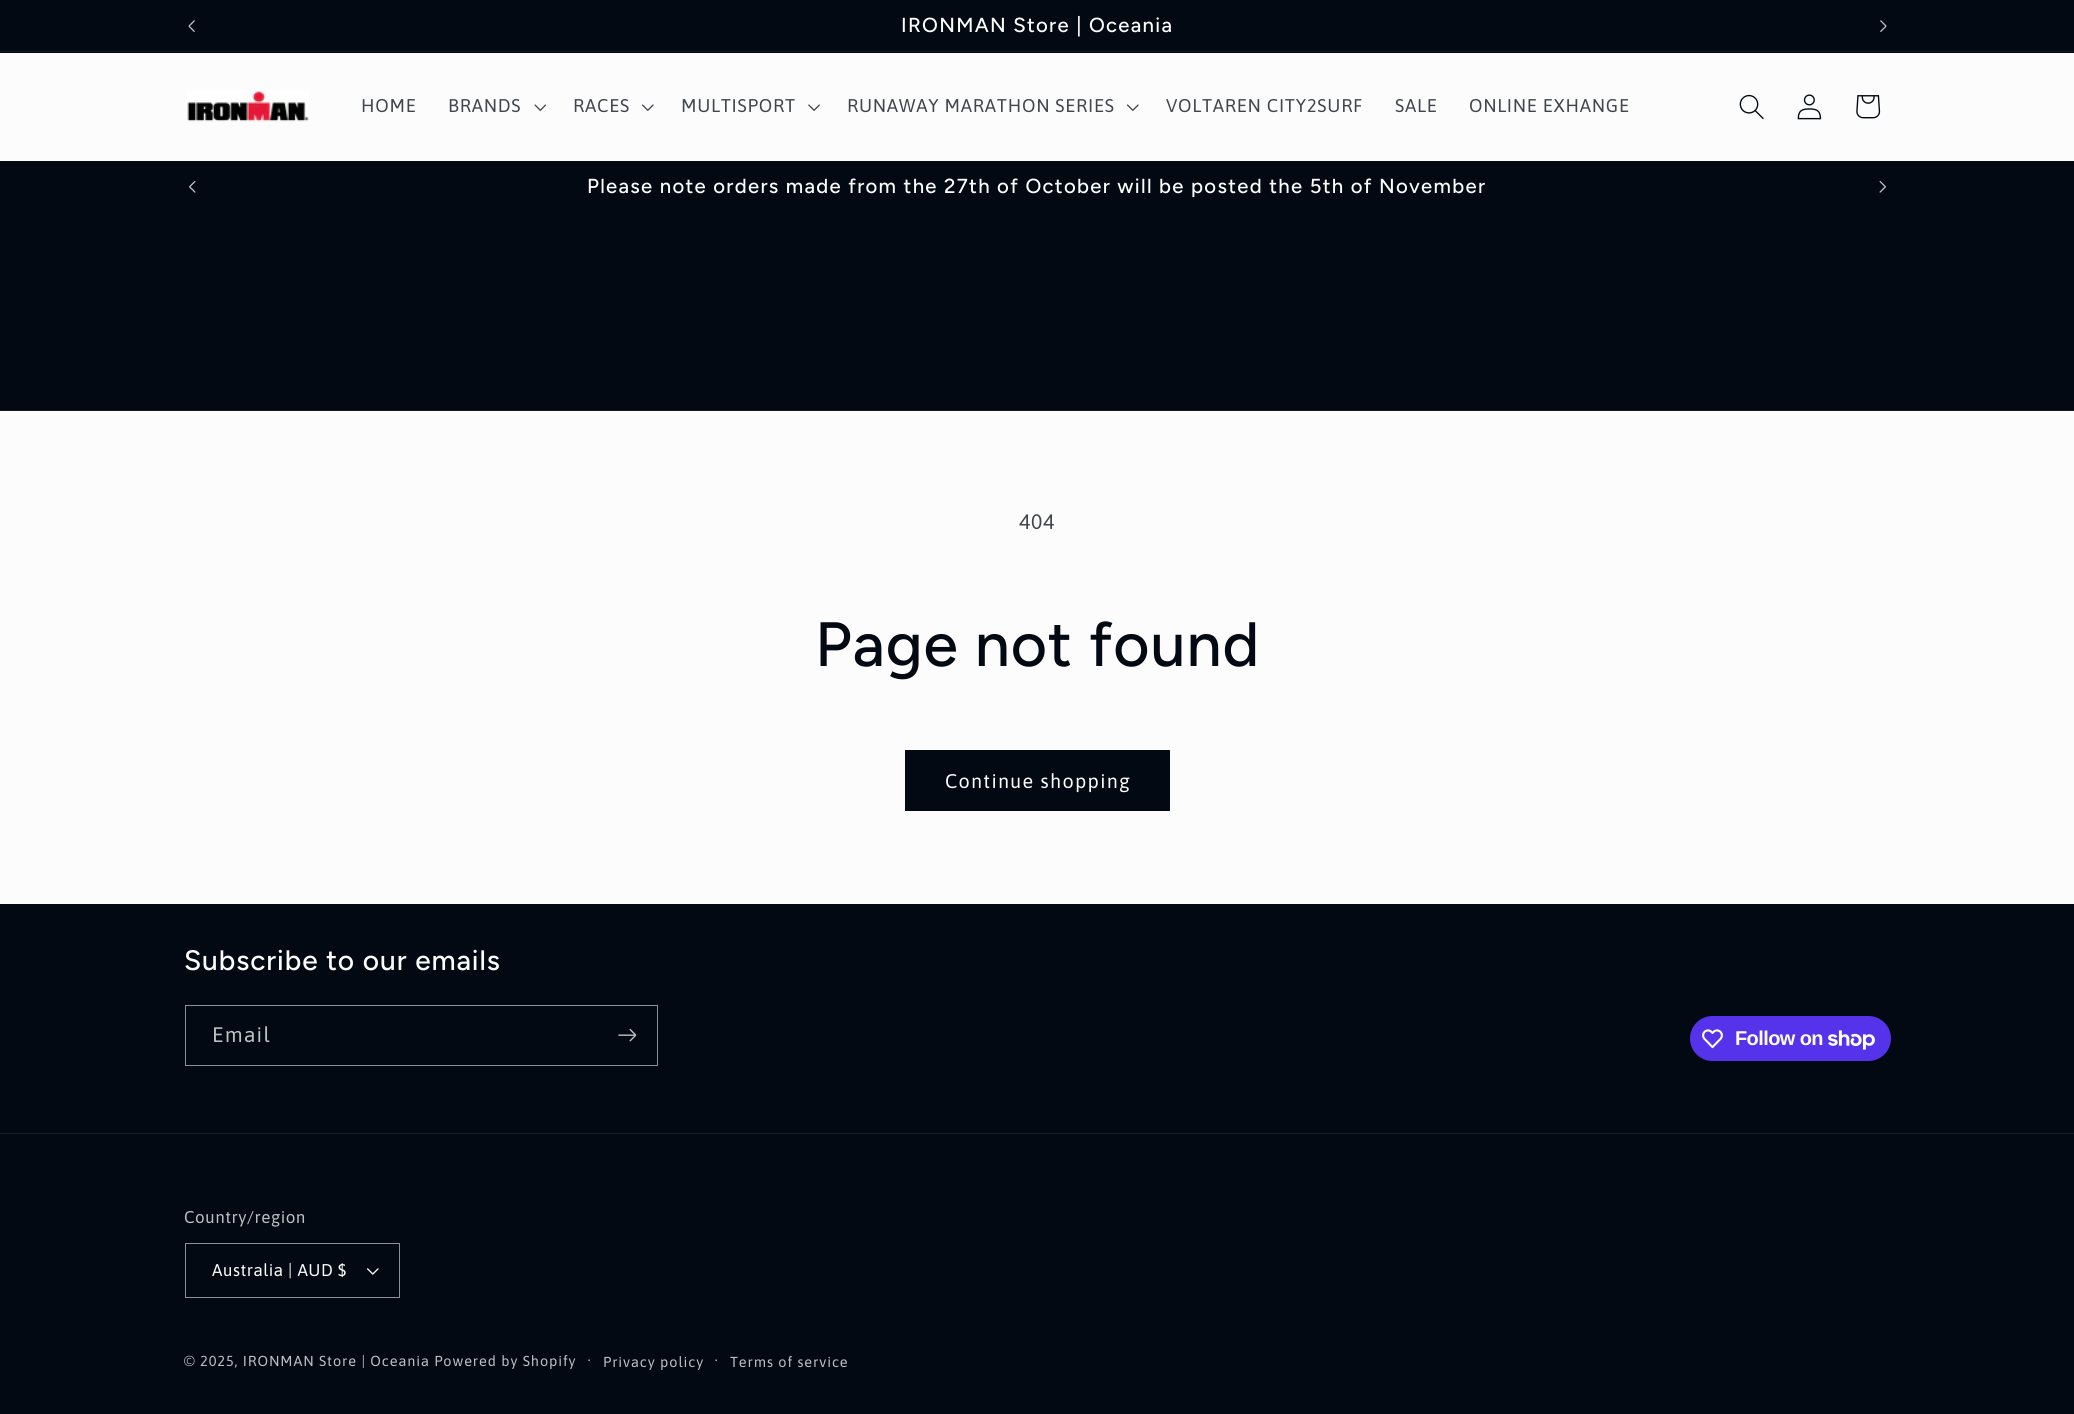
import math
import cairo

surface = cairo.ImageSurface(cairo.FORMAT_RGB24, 2074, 1414)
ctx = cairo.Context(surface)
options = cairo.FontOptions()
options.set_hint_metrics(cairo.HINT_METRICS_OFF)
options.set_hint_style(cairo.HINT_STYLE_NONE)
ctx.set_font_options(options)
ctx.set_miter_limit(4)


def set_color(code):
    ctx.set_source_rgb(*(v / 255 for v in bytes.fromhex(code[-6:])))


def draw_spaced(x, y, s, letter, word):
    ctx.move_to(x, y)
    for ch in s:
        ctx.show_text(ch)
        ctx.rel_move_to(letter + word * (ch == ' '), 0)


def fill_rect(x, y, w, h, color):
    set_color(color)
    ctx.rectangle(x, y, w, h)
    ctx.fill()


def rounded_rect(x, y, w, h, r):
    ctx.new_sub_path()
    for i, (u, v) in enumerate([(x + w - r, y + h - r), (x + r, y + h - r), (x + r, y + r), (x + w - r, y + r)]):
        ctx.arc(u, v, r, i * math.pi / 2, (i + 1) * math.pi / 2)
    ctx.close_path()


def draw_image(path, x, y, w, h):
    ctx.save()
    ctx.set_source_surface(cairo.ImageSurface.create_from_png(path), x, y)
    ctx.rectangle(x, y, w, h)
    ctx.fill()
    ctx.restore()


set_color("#fcfcfc")
ctx.paint()
fill_rect(0, 0, 2074, 53, "#020912")
fill_rect(0, 51, 2074, 1, "#161c25")
draw_image("assets/img1.png", 188, 20, 7, 12)
ctx.select_font_face("Figtree Medium")
ctx.set_font_size(20.3)
set_color("#fcfcfc")
draw_spaced(901, 32, "IRONMAN Store | Oceania", 1.3, 0)
draw_image("assets/img2.png", 1880, 20, 7, 12)
draw_image("assets/img3.png", 187, 90, 122, 32)
ctx.select_font_face("Asap")
ctx.set_font_size(18.4)
set_color("#41464d")
draw_spaced(361, 112, "HOME", 0.75, 0)
draw_spaced(448, 112, "BRANDS", 0.75, 0)
draw_image("assets/img4.png", 534, 104, 12, 7)
draw_spaced(573, 112, "RACES", 0.75, 0)
draw_image("assets/img5.png", 642, 104, 12, 7)
draw_spaced(681, 112, "MULTISPORT", 0.75, 0)
draw_image("assets/img6.png", 808, 104, 12, 7)
draw_spaced(847, 112, "RUNAWAY MARATHON SERIES", 0.75, 0)
draw_image("assets/img5.png", 1127, 104, 12, 7)
draw_spaced(1166, 112, "VOLTAREN CITY2SURF", 0.75, 0)
draw_spaced(1395, 112, "SALE", 0.75, 0)
draw_spaced(1469, 112, "ONLINE EXHANGE", 0.75, 0)
draw_image("assets/img7.png", 1739, 94, 25, 26)
draw_image("assets/img8.png", 1797, 94, 25, 26)
draw_image("assets/img9.png", 1856, 95, 25, 24)
fill_rect(0, 161, 2074, 249, "#020912")
fill_rect(0, 410, 2074, 1, "#161c25")
draw_image("assets/img10.png", 189, 180, 7, 13)
ctx.select_font_face("Figtree Medium")
ctx.set_font_size(20.3)
set_color("#fcfcfc")
draw_spaced(587, 193, "Please note orders made from the 27th of October will be posted the 5th of November", 1.3, 0)
draw_image("assets/img11.png", 1879, 181, 7, 12)
ctx.select_font_face("Asap")
ctx.set_font_size(21)
set_color("#41464d")
draw_spaced(1019, 529, "404", 0.75, 0)
ctx.select_font_face("Figtree Medium")
ctx.set_font_size(62.5)
set_color("#020912")
draw_spaced(815, 666, "Page not found", 0.9, 0)
fill_rect(905, 750, 265, 61, "#020912")
ctx.select_font_face("Asap")
ctx.set_font_size(19.75)
set_color("#fcfcfc")
draw_spaced(945, 788, "Continue shopping", 1.3, 0)
fill_rect(0, 904, 2074, 510, "#020912")
ctx.select_font_face("Figtree Medium")
ctx.set_font_size(28.1)
set_color("#fcfcfc")
draw_spaced(184, 970, "Subscribe to our emails", 0.9, 0)
ctx.rectangle(185.5, 1005.5, 472, 60)
set_color("#8c8f93")
ctx.set_line_width(1)
ctx.stroke()
ctx.select_font_face("Asap")
ctx.set_font_size(21)
set_color("#bebfc2")
draw_spaced(212, 1042, "Email", 1.3, 0)
draw_image("assets/img12.png", 618, 1028, 18, 14)
set_color("#5433eb")
rounded_rect(1690, 1016, 201, 45, 22.5)
ctx.fill()
draw_image("assets/img13.png", 1702, 1029, 21, 20)
ctx.select_font_face("Liberation Sans", cairo.FONT_SLANT_NORMAL, cairo.FONT_WEIGHT_BOLD)
ctx.set_font_size(20)
set_color("#fcfcfc")
draw_spaced(1735, 1045, "Follow on", -0.6, 0)
draw_image("assets/img14.png", 1828, 1030, 47, 20)
fill_rect(0, 1133, 2074, 1, "#161c25")
ctx.select_font_face("Asap")
ctx.set_font_size(17)
set_color("#bebfc2")
draw_spaced(184, 1223, "Country/region", 0.5, 0)
draw_image("assets/img15.png", 366, 1268, 13, 7)
ctx.rectangle(185.5, 1243.5, 214, 54)
set_color("#8c8f93")
ctx.stroke()
set_color("#fcfcfc")
draw_spaced(212, 1276, "Australia | AUD $", 0.5, 0)
ctx.set_font_size(14.45)
set_color("#bebfc2")
draw_spaced(184, 1366, "© 2025, IRONMAN Store | Oceania Powered by Shopify", 0.92, 0)
ctx.set_font_size(16)
draw_spaced(587, 1366, "·", 0.92, 0)
ctx.set_font_size(14.45)
draw_spaced(603, 1367, "Privacy policy", 0.92, 0)
ctx.set_font_size(16)
draw_spaced(714, 1366, "·", 0.92, 0)
ctx.set_font_size(14.45)
draw_spaced(730, 1367, "Terms of service", 0.92, 0)
surface.write_to_png("output.png")
